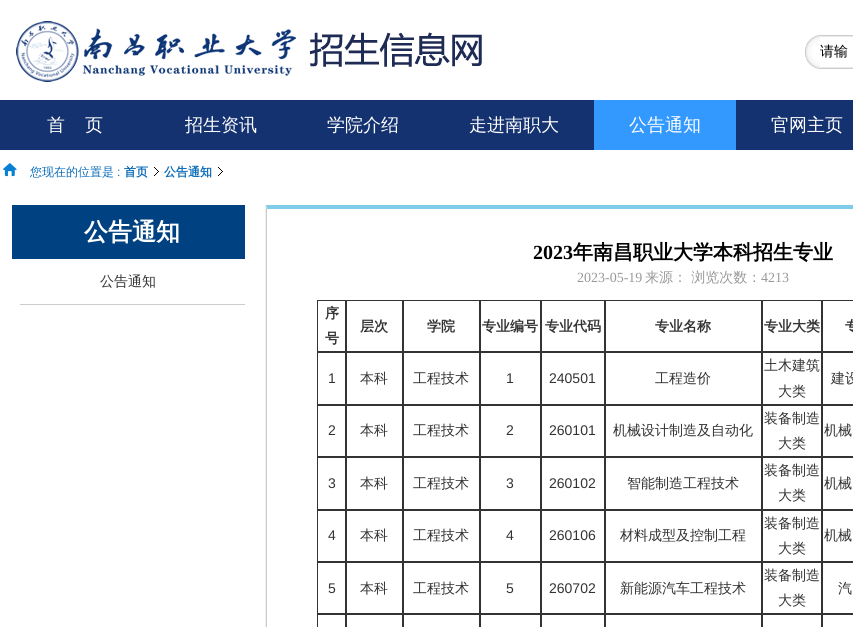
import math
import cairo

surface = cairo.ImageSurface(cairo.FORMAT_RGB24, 853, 627)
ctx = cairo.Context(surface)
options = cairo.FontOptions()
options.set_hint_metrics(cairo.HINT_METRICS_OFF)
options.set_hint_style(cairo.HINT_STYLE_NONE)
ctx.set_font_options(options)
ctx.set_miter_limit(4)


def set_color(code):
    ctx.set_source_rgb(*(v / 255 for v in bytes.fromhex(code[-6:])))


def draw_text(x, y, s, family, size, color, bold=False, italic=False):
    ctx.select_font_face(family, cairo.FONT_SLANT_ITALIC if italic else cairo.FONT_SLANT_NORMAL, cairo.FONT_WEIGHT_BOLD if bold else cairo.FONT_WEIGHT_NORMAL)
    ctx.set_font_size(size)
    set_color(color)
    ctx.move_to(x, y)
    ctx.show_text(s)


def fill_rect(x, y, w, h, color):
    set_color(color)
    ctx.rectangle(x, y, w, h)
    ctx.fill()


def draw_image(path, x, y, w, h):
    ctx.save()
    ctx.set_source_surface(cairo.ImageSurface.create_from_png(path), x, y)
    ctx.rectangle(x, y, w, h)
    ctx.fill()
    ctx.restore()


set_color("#ffffff")
ctx.paint()
draw_image("assets/img1.png", 16, 21, 466, 61)
draw_image("assets/img2.png", 805, 35, 48, 34)
fill_rect(820, 37, 33, 30, "#ffffff")
draw_text(820, 56, "请输", "WenQuanYi Zen Hei Medium", 14, "#000000")
fill_rect(0, 100, 853, 50, "#143270")
draw_text(47, 131, "首", "WenQuanYi Zen Hei Medium", 18, "#ffffff")
draw_text(85, 131, "页", "WenQuanYi Zen Hei Medium", 18, "#ffffff")
draw_text(185, 131, "招生资讯", "WenQuanYi Zen Hei Medium", 18, "#ffffff")
draw_text(327, 131, "学院介绍", "WenQuanYi Zen Hei Medium", 18, "#ffffff")
draw_text(469, 131, "走进南职大", "WenQuanYi Zen Hei Medium", 18, "#ffffff")
fill_rect(594, 100, 142, 50, "#3399ff")
draw_text(629, 131, "公告通知", "WenQuanYi Zen Hei Medium", 18, "#ffffff")
draw_text(771, 131, "官网主页", "WenQuanYi Zen Hei Medium", 18, "#ffffff")
draw_image("assets/img3.png", 3, 163, 14, 14)
draw_text(30, 176, "您现在的位置是", "WenQuanYi Zen Hei Medium", 12, "#0b6cb8")
draw_text(117, 176, ":", "Liberation Sans", 12, "#0b6cb8")
draw_text(124, 176, "首页", "WenQuanYi Zen Hei", 12, "#0b6cb8", bold=True)
draw_image("assets/img4.png", 154, 167, 5, 9)
draw_text(164, 176, "公告通知", "WenQuanYi Zen Hei", 12, "#0b6cb8", bold=True)
draw_image("assets/img4.png", 218, 167, 5, 9)
fill_rect(265, 205, 1, 422, "#efefef")
fill_rect(12, 205, 233, 54, "#004181")
draw_text(84, 240, "公告通知", "WenQuanYi Zen Hei", 24, "#ffffff", bold=True)
fill_rect(20, 304, 225, 1, "#cccccc")
draw_text(100, 286, "公告通知", "WenQuanYi Zen Hei Medium", 14, "#333333")
set_color("#7fcde8")
ctx.new_path()
ctx.move_to(266, 205)
ctx.line_to(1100, 205)
ctx.line_to(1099, 209)
ctx.line_to(267, 209)
ctx.close_path()
ctx.fill()
set_color("#cccccc")
ctx.new_path()
ctx.move_to(266, 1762)
ctx.line_to(266, 205)
ctx.line_to(267, 209)
ctx.line_to(267, 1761)
ctx.close_path()
ctx.fill()
draw_text(533, 259, "2023", "Liberation Serif", 20, "#000000", bold=True)
draw_text(573, 259, "年南昌职业大学本科招生专业", "WenQuanYi Zen Hei", 20, "#000000", bold=True)
draw_text(577, 282, "2023-05-19", "Liberation Serif", 14, "#999999")
draw_text(645, 282, "来源： 浏览次数：", "WenQuanYi Zen Hei Medium", 14, "#999999")
draw_text(761, 282, "4213", "Liberation Serif", 14, "#999999")
ctx.rectangle(317.5, 300.5, 28, 51)
set_color("#333333")
ctx.set_line_width(1)
ctx.stroke()
draw_text(325, 318, "序", "WenQuanYi Zen Hei", 14, "#333333", bold=True)
draw_text(325, 343, "号", "WenQuanYi Zen Hei", 14, "#333333", bold=True)
ctx.rectangle(346.5, 300.5, 56, 51)
ctx.stroke()
draw_text(360, 331, "层次", "WenQuanYi Zen Hei", 14, "#333333", bold=True)
ctx.rectangle(403.5, 300.5, 76, 51)
ctx.stroke()
draw_text(427, 331, "学院", "WenQuanYi Zen Hei", 14, "#333333", bold=True)
ctx.rectangle(480.5, 300.5, 60, 51)
ctx.stroke()
draw_text(482, 331, "专业编号", "WenQuanYi Zen Hei", 14, "#333333", bold=True)
ctx.rectangle(541.5, 300.5, 63, 51)
ctx.stroke()
draw_text(545, 331, "专业代码", "WenQuanYi Zen Hei", 14, "#333333", bold=True)
ctx.rectangle(605.5, 300.5, 156, 51)
ctx.stroke()
draw_text(655, 331, "专业名称", "WenQuanYi Zen Hei", 14, "#333333", bold=True)
ctx.rectangle(762.5, 300.5, 59, 51)
ctx.stroke()
draw_text(764, 331, "专业大类", "WenQuanYi Zen Hei", 14, "#333333", bold=True)
ctx.rectangle(822.5, 300.5, 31, 51)
ctx.stroke()
draw_text(845, 331, "专", "WenQuanYi Zen Hei", 14, "#333333", bold=True)
ctx.rectangle(317.5, 352.5, 28, 52)
ctx.stroke()
draw_text(328, 383, "1", "Liberation Sans", 14, "#333333")
ctx.rectangle(346.5, 352.5, 56, 52)
ctx.stroke()
draw_text(360, 383, "本科", "WenQuanYi Zen Hei Medium", 14, "#333333")
ctx.rectangle(403.5, 352.5, 76, 52)
ctx.stroke()
draw_text(413, 383, "工程技术", "WenQuanYi Zen Hei Medium", 14, "#333333")
ctx.rectangle(480.5, 352.5, 60, 52)
ctx.stroke()
draw_text(506, 383, "1", "Liberation Sans", 14, "#333333")
ctx.rectangle(541.5, 352.5, 63, 52)
ctx.stroke()
draw_text(549, 383, "240501", "Liberation Sans", 14, "#333333")
ctx.rectangle(605.5, 352.5, 156, 52)
ctx.stroke()
draw_text(655, 383, "工程造价", "WenQuanYi Zen Hei Medium", 14, "#333333")
ctx.rectangle(762.5, 352.5, 59, 52)
ctx.stroke()
draw_text(764, 370, "土木建筑", "WenQuanYi Zen Hei Medium", 14, "#333333")
draw_text(778, 396, "大类", "WenQuanYi Zen Hei Medium", 14, "#333333")
ctx.rectangle(822.5, 352.5, 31, 52)
ctx.stroke()
draw_text(831, 383, "建设", "WenQuanYi Zen Hei Medium", 14, "#333333")
ctx.rectangle(317.5, 405.5, 28, 51)
ctx.stroke()
draw_text(328, 435, "2", "Liberation Sans", 14, "#333333")
ctx.rectangle(346.5, 405.5, 56, 51)
ctx.stroke()
draw_text(360, 435, "本科", "WenQuanYi Zen Hei Medium", 14, "#333333")
ctx.rectangle(403.5, 405.5, 76, 51)
ctx.stroke()
draw_text(413, 435, "工程技术", "WenQuanYi Zen Hei Medium", 14, "#333333")
ctx.rectangle(480.5, 405.5, 60, 51)
ctx.stroke()
draw_text(506, 435, "2", "Liberation Sans", 14, "#333333")
ctx.rectangle(541.5, 405.5, 63, 51)
ctx.stroke()
draw_text(549, 435, "260101", "Liberation Sans", 14, "#333333")
ctx.rectangle(605.5, 405.5, 156, 51)
ctx.stroke()
draw_text(613, 435, "机械设计制造及自动化", "WenQuanYi Zen Hei Medium", 14, "#333333")
ctx.rectangle(762.5, 405.5, 59, 51)
ctx.stroke()
draw_text(764, 423, "装备制造", "WenQuanYi Zen Hei Medium", 14, "#333333")
draw_text(778, 448, "大类", "WenQuanYi Zen Hei Medium", 14, "#333333")
ctx.rectangle(822.5, 405.5, 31, 51)
ctx.stroke()
draw_text(824, 435, "机械", "WenQuanYi Zen Hei Medium", 14, "#333333")
ctx.rectangle(317.5, 457.5, 28, 52)
ctx.stroke()
draw_text(328, 488, "3", "Liberation Sans", 14, "#333333")
ctx.rectangle(346.5, 457.5, 56, 52)
ctx.stroke()
draw_text(360, 488, "本科", "WenQuanYi Zen Hei Medium", 14, "#333333")
ctx.rectangle(403.5, 457.5, 76, 52)
ctx.stroke()
draw_text(413, 488, "工程技术", "WenQuanYi Zen Hei Medium", 14, "#333333")
ctx.rectangle(480.5, 457.5, 60, 52)
ctx.stroke()
draw_text(506, 488, "3", "Liberation Sans", 14, "#333333")
ctx.rectangle(541.5, 457.5, 63, 52)
ctx.stroke()
draw_text(549, 488, "260102", "Liberation Sans", 14, "#333333")
ctx.rectangle(605.5, 457.5, 156, 52)
ctx.stroke()
draw_text(627, 488, "智能制造工程技术", "WenQuanYi Zen Hei Medium", 14, "#333333")
ctx.rectangle(762.5, 457.5, 59, 52)
ctx.stroke()
draw_text(764, 475, "装备制造", "WenQuanYi Zen Hei Medium", 14, "#333333")
draw_text(778, 500, "大类", "WenQuanYi Zen Hei Medium", 14, "#333333")
ctx.rectangle(822.5, 457.5, 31, 52)
ctx.stroke()
draw_text(824, 488, "机械", "WenQuanYi Zen Hei Medium", 14, "#333333")
ctx.rectangle(317.5, 510.5, 28, 51)
ctx.stroke()
draw_text(328, 540, "4", "Liberation Sans", 14, "#333333")
ctx.rectangle(346.5, 510.5, 56, 51)
ctx.stroke()
draw_text(360, 540, "本科", "WenQuanYi Zen Hei Medium", 14, "#333333")
ctx.rectangle(403.5, 510.5, 76, 51)
ctx.stroke()
draw_text(413, 540, "工程技术", "WenQuanYi Zen Hei Medium", 14, "#333333")
ctx.rectangle(480.5, 510.5, 60, 51)
ctx.stroke()
draw_text(506, 540, "4", "Liberation Sans", 14, "#333333")
ctx.rectangle(541.5, 510.5, 63, 51)
ctx.stroke()
draw_text(549, 540, "260106", "Liberation Sans", 14, "#333333")
ctx.rectangle(605.5, 510.5, 156, 51)
ctx.stroke()
draw_text(620, 540, "材料成型及控制工程", "WenQuanYi Zen Hei Medium", 14, "#333333")
ctx.rectangle(762.5, 510.5, 59, 51)
ctx.stroke()
draw_text(764, 528, "装备制造", "WenQuanYi Zen Hei Medium", 14, "#333333")
draw_text(778, 553, "大类", "WenQuanYi Zen Hei Medium", 14, "#333333")
ctx.rectangle(822.5, 510.5, 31, 51)
ctx.stroke()
draw_text(824, 540, "机械", "WenQuanYi Zen Hei Medium", 14, "#333333")
ctx.rectangle(317.5, 562.5, 28, 51)
ctx.stroke()
draw_text(328, 593, "5", "Liberation Sans", 14, "#333333")
ctx.rectangle(346.5, 562.5, 56, 51)
ctx.stroke()
draw_text(360, 593, "本科", "WenQuanYi Zen Hei Medium", 14, "#333333")
ctx.rectangle(403.5, 562.5, 76, 51)
ctx.stroke()
draw_text(413, 593, "工程技术", "WenQuanYi Zen Hei Medium", 14, "#333333")
ctx.rectangle(480.5, 562.5, 60, 51)
ctx.stroke()
draw_text(506, 593, "5", "Liberation Sans", 14, "#333333")
ctx.rectangle(541.5, 562.5, 63, 51)
ctx.stroke()
draw_text(549, 593, "260702", "Liberation Sans", 14, "#333333")
ctx.rectangle(605.5, 562.5, 156, 51)
ctx.stroke()
draw_text(620, 593, "新能源汽车工程技术", "WenQuanYi Zen Hei Medium", 14, "#333333")
ctx.rectangle(762.5, 562.5, 59, 51)
ctx.stroke()
draw_text(764, 580, "装备制造", "WenQuanYi Zen Hei Medium", 14, "#333333")
draw_text(778, 605, "大类", "WenQuanYi Zen Hei Medium", 14, "#333333")
ctx.rectangle(822.5, 562.5, 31, 51)
ctx.stroke()
draw_text(838, 593, "汽", "WenQuanYi Zen Hei Medium", 14, "#333333")
ctx.rectangle(317.5, 614.5, 28, 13)
ctx.stroke()
ctx.rectangle(346.5, 614.5, 56, 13)
ctx.stroke()
ctx.rectangle(403.5, 614.5, 76, 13)
ctx.stroke()
ctx.rectangle(480.5, 614.5, 60, 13)
ctx.stroke()
ctx.rectangle(541.5, 614.5, 63, 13)
ctx.stroke()
ctx.rectangle(605.5, 614.5, 156, 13)
ctx.stroke()
ctx.rectangle(762.5, 614.5, 59, 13)
ctx.stroke()
ctx.rectangle(822.5, 614.5, 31, 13)
ctx.stroke()
surface.write_to_png("output.png")
